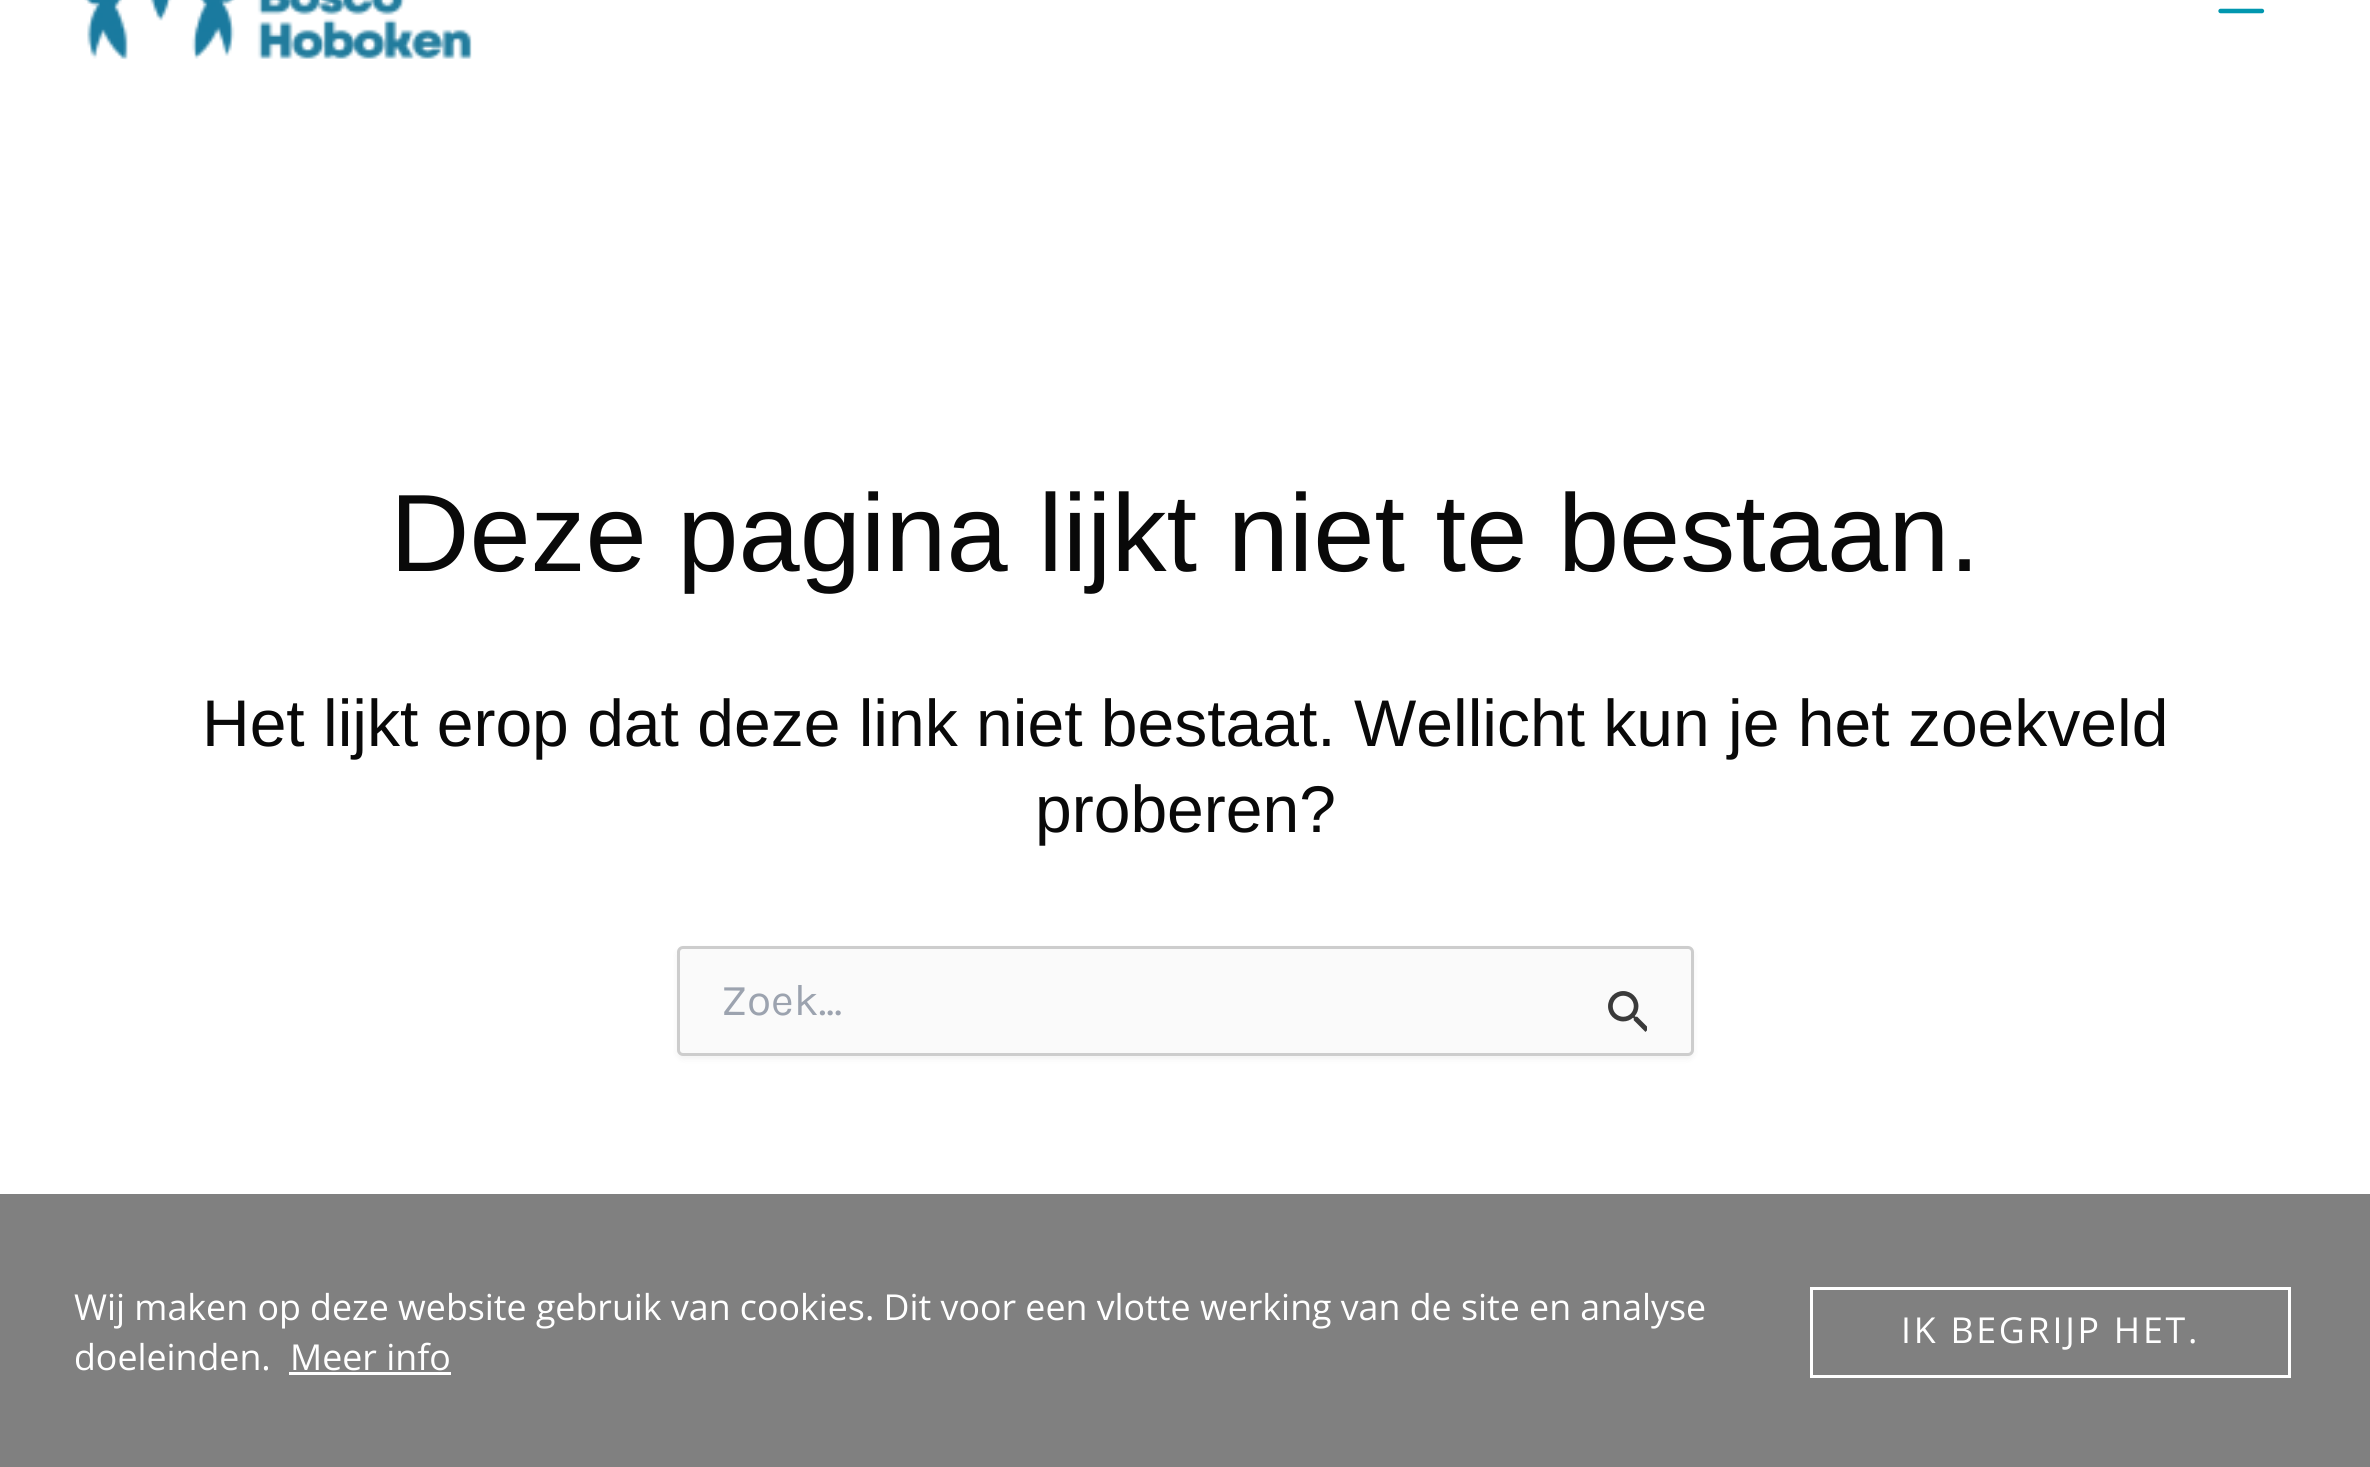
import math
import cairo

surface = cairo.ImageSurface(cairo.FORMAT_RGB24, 2370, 1467)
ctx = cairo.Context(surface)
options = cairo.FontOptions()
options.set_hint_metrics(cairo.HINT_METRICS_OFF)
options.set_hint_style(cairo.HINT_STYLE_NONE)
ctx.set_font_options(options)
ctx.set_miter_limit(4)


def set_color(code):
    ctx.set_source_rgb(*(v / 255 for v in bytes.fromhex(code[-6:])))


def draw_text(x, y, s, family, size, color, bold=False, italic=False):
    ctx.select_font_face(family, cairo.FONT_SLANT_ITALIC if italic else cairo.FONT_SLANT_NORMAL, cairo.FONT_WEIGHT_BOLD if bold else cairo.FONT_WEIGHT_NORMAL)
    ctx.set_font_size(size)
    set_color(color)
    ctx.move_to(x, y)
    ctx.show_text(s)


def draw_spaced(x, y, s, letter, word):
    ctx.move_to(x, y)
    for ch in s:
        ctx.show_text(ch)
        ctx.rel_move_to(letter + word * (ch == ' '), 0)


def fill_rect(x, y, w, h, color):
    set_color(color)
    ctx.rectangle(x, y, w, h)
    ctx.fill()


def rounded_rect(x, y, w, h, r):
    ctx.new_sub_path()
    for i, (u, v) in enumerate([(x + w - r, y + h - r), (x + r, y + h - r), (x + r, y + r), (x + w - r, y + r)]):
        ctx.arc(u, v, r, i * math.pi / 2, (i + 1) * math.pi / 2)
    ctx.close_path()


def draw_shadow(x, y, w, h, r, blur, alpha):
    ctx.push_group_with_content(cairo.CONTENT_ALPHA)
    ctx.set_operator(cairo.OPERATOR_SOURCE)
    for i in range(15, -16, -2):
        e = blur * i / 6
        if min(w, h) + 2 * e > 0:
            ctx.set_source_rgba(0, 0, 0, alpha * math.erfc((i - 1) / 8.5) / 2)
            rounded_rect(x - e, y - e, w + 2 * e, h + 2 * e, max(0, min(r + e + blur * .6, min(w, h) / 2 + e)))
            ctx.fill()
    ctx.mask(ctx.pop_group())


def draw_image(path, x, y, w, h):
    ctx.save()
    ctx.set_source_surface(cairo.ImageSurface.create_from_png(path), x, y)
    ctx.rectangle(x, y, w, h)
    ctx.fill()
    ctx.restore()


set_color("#ffffff")
ctx.paint()
fill_rect(0, 1194, 2370, 273, "#808080")
draw_image("assets/img1.png", 84, 0, 388, 60)
draw_image("assets/img2.png", 2218, 8, 47, 6)
draw_text(390, 571, "Deze pagina lijkt niet te bestaan.", "Liberation Sans", 110, "#090909")
draw_text(202, 746, "Het lijkt erop dat deze link niet bestaat. Wellicht kun je het zoekveld", "Liberation Sans", 66, "#090909")
draw_text(1035, 832, "proberen?", "Liberation Sans", 66, "#090909")
set_color("#000000")
draw_shadow(677, 949, 1017, 110, 6, 3, 0.05)
set_color("#fafafa")
rounded_rect(678.5, 947.5, 1014, 107, 4.5)
ctx.fill_preserve()
set_color("#cdcdcd")
ctx.set_line_width(3)
ctx.stroke()
draw_text(721, 1015, "Zoek...", "Karla", 44, "#9ca3af")
draw_image("assets/img3.png", 1608, 991, 39, 41)
draw_text(74, 1320, "Wij maken op deze website gebruik van cookies. Dit voor een vlotte werking van de site en analyse", "Open Sans", 35.75, "#ffffff")
draw_text(74, 1370, "doeleinden.", "Open Sans", 35.75, "#ffffff")
draw_text(290, 1370, "Meer info", "Open Sans", 35.75, "#ffffff")
fill_rect(289, 1372, 162, 3, "#ffffff")
ctx.rectangle(1811.5, 1288.5, 478, 88)
ctx.stroke()
draw_spaced(1901, 1343, "IK BEGRIJP HET.", 2.75, 0)
surface.write_to_png("output.png")
